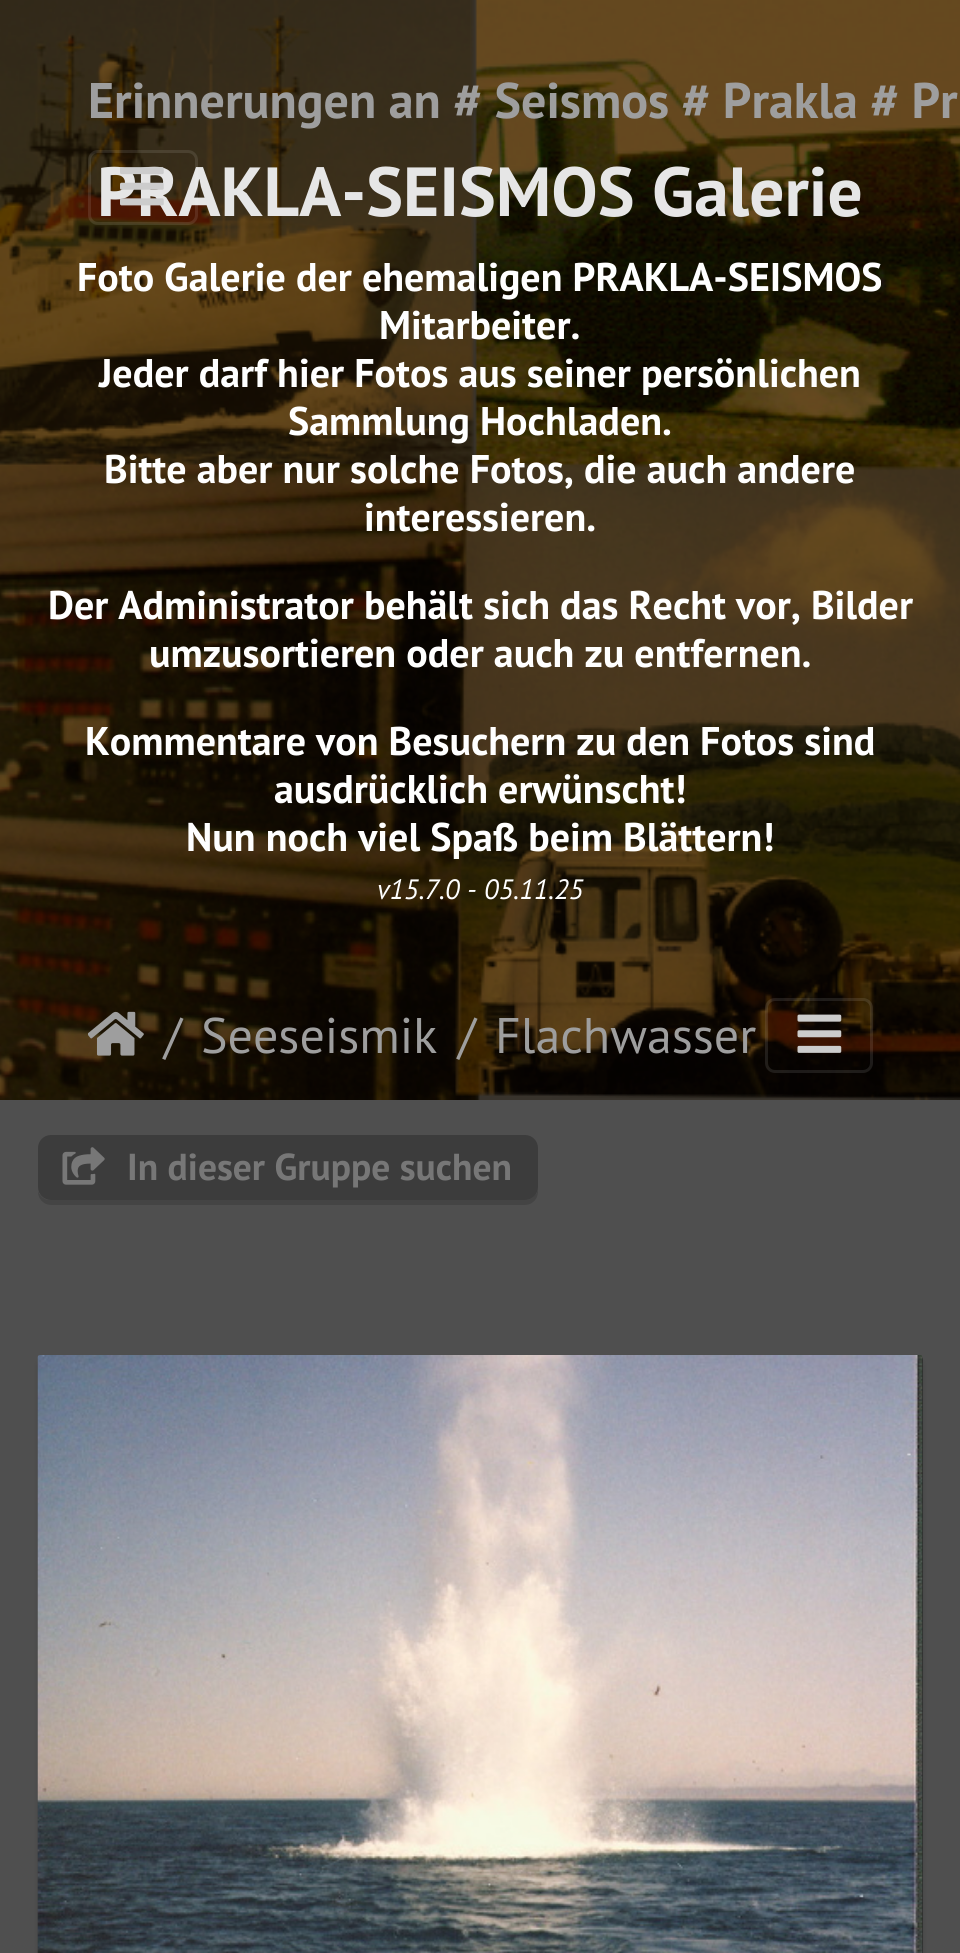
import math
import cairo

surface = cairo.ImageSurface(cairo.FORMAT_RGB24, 960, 1953)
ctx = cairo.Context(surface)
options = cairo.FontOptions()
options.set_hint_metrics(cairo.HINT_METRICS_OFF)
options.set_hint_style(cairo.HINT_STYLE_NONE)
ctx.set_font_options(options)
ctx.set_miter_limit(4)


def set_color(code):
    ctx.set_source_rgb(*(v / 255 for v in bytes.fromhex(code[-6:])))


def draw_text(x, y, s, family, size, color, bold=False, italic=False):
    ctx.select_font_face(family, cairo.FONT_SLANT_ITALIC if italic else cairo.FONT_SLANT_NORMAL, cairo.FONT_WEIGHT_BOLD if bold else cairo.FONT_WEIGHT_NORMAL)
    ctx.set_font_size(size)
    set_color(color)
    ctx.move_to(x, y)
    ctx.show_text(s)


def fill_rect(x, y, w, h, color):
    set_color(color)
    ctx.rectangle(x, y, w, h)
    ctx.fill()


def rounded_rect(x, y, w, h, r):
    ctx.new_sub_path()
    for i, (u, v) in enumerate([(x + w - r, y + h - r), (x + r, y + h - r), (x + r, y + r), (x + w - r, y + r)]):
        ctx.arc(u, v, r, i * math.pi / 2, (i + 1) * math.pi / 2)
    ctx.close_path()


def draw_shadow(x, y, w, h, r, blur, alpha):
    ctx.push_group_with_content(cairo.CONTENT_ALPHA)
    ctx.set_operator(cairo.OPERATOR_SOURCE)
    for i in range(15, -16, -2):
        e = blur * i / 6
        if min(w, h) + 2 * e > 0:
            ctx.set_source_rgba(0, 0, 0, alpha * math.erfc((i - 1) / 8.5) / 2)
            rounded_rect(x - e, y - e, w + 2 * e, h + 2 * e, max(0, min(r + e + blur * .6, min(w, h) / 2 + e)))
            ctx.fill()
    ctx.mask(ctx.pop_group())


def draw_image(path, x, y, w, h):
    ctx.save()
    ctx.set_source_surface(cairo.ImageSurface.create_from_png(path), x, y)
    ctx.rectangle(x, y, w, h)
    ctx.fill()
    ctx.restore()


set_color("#4f4f4f")
ctx.paint()
fill_rect(470, 0, 490, 1100, "#2f2f2f")
draw_image("assets/img2.png", 0, 0, 960, 1100)
draw_text(88, 118, "Erinnerungen an # Seismos # Prakla # Pr", "PT Sans", 50, "#9e9e9e", bold=True)
draw_text(97, 216, "PRAKLA-SEISMOS Galerie", "PT Sans", 69.4, "#e6e6e6", bold=True)
rounded_rect(89.5, 151.5, 107, 72, 8.5)
ctx.set_source_rgba(1, 1, 1, 0.1)
ctx.set_line_width(3)
ctx.stroke()
draw_image("assets/img1.png", 120, 167, 44, 39)
draw_text(77, 291, "Foto Galerie der ehemaligen PRAKLA-SEISMOS", "PT Sans", 40, "#ffffff", bold=True)
draw_text(379, 339, "Mitarbeiter.", "PT Sans", 40, "#ffffff", bold=True)
draw_text(99, 387, "Jeder darf hier Fotos aus seiner persönlichen", "PT Sans", 40, "#ffffff", bold=True)
draw_text(288, 435, "Sammlung Hochladen.", "PT Sans", 40, "#ffffff", bold=True)
draw_text(104, 483, "Bitte aber nur solche Fotos, die auch andere", "PT Sans", 40, "#ffffff", bold=True)
draw_text(364, 531, "interessieren.", "PT Sans", 40, "#ffffff", bold=True)
draw_text(48, 619, "Der Administrator behält sich das Recht vor, Bilder", "PT Sans", 40, "#ffffff", bold=True)
draw_text(149, 667, "umzusortieren oder auch zu entfernen.", "PT Sans", 40, "#ffffff", bold=True)
draw_text(85, 755, "Kommentare von Besuchern zu den Fotos sind", "PT Sans", 40, "#ffffff", bold=True)
draw_text(274, 803, "ausdrücklich erwünscht!", "PT Sans", 40, "#ffffff", bold=True)
draw_text(186, 851, "Nun noch viel Spaß beim Blättern!", "PT Sans", 40, "#ffffff", bold=True)
draw_text(377, 899, "v15.7.0 - 05.11.25", "PT Sans", 28, "#ffffff", italic=True)
draw_image("assets/img3.png", 88, 1011, 56, 45)
draw_text(164, 1053, "/", "PT Sans", 50, "#9e9e9e")
draw_text(201, 1053, "Seeseismik", "PT Sans", 50, "#9e9e9e")
draw_text(458, 1053, "/", "PT Sans", 50, "#9e9e9e")
draw_text(495, 1053, "Flachwasser", "PT Sans", 50, "#9e9e9e")
rounded_rect(766.5, 999.5, 105, 72, 8.5)
ctx.set_source_rgba(1, 1, 1, 0.1)
ctx.stroke()
draw_image("assets/img4.png", 797, 1014, 45, 39)
set_color("#444444")
ctx.new_path()
ctx.move_to(38, 1191)
ctx.line_to(38, 1192)
ctx.curve_to(38, 1199, 44, 1205, 51, 1205)
ctx.line_to(525, 1205)
ctx.curve_to(532, 1205, 538, 1199, 538, 1192)
ctx.line_to(538, 1153)
ctx.line_to(538, 1149)
ctx.line_to(538, 1188)
ctx.curve_to(538, 1194, 532, 1200, 525, 1200)
ctx.line_to(50, 1200)
ctx.curve_to(44, 1200, 40, 1196, 38, 1191)
ctx.close_path()
ctx.fill()
set_color("#3c3c3c")
rounded_rect(38, 1135, 500, 65, 13)
ctx.fill()
draw_image("assets/img5.png", 62, 1147, 43, 38)
draw_text(127, 1180, "In dieser Gruppe suchen", "PT Sans", 37.5, "#777777", bold=True)
set_color("#000000")
draw_shadow(38, 1360, 885, 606, 5, 2.5, 0.14)
set_color("#2e2e2e")
rounded_rect(38, 1355, 885, 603, 5)
ctx.fill()
draw_image("assets/img6.png", 37, 1355, 886, 598)
surface.write_to_png("output.png")
